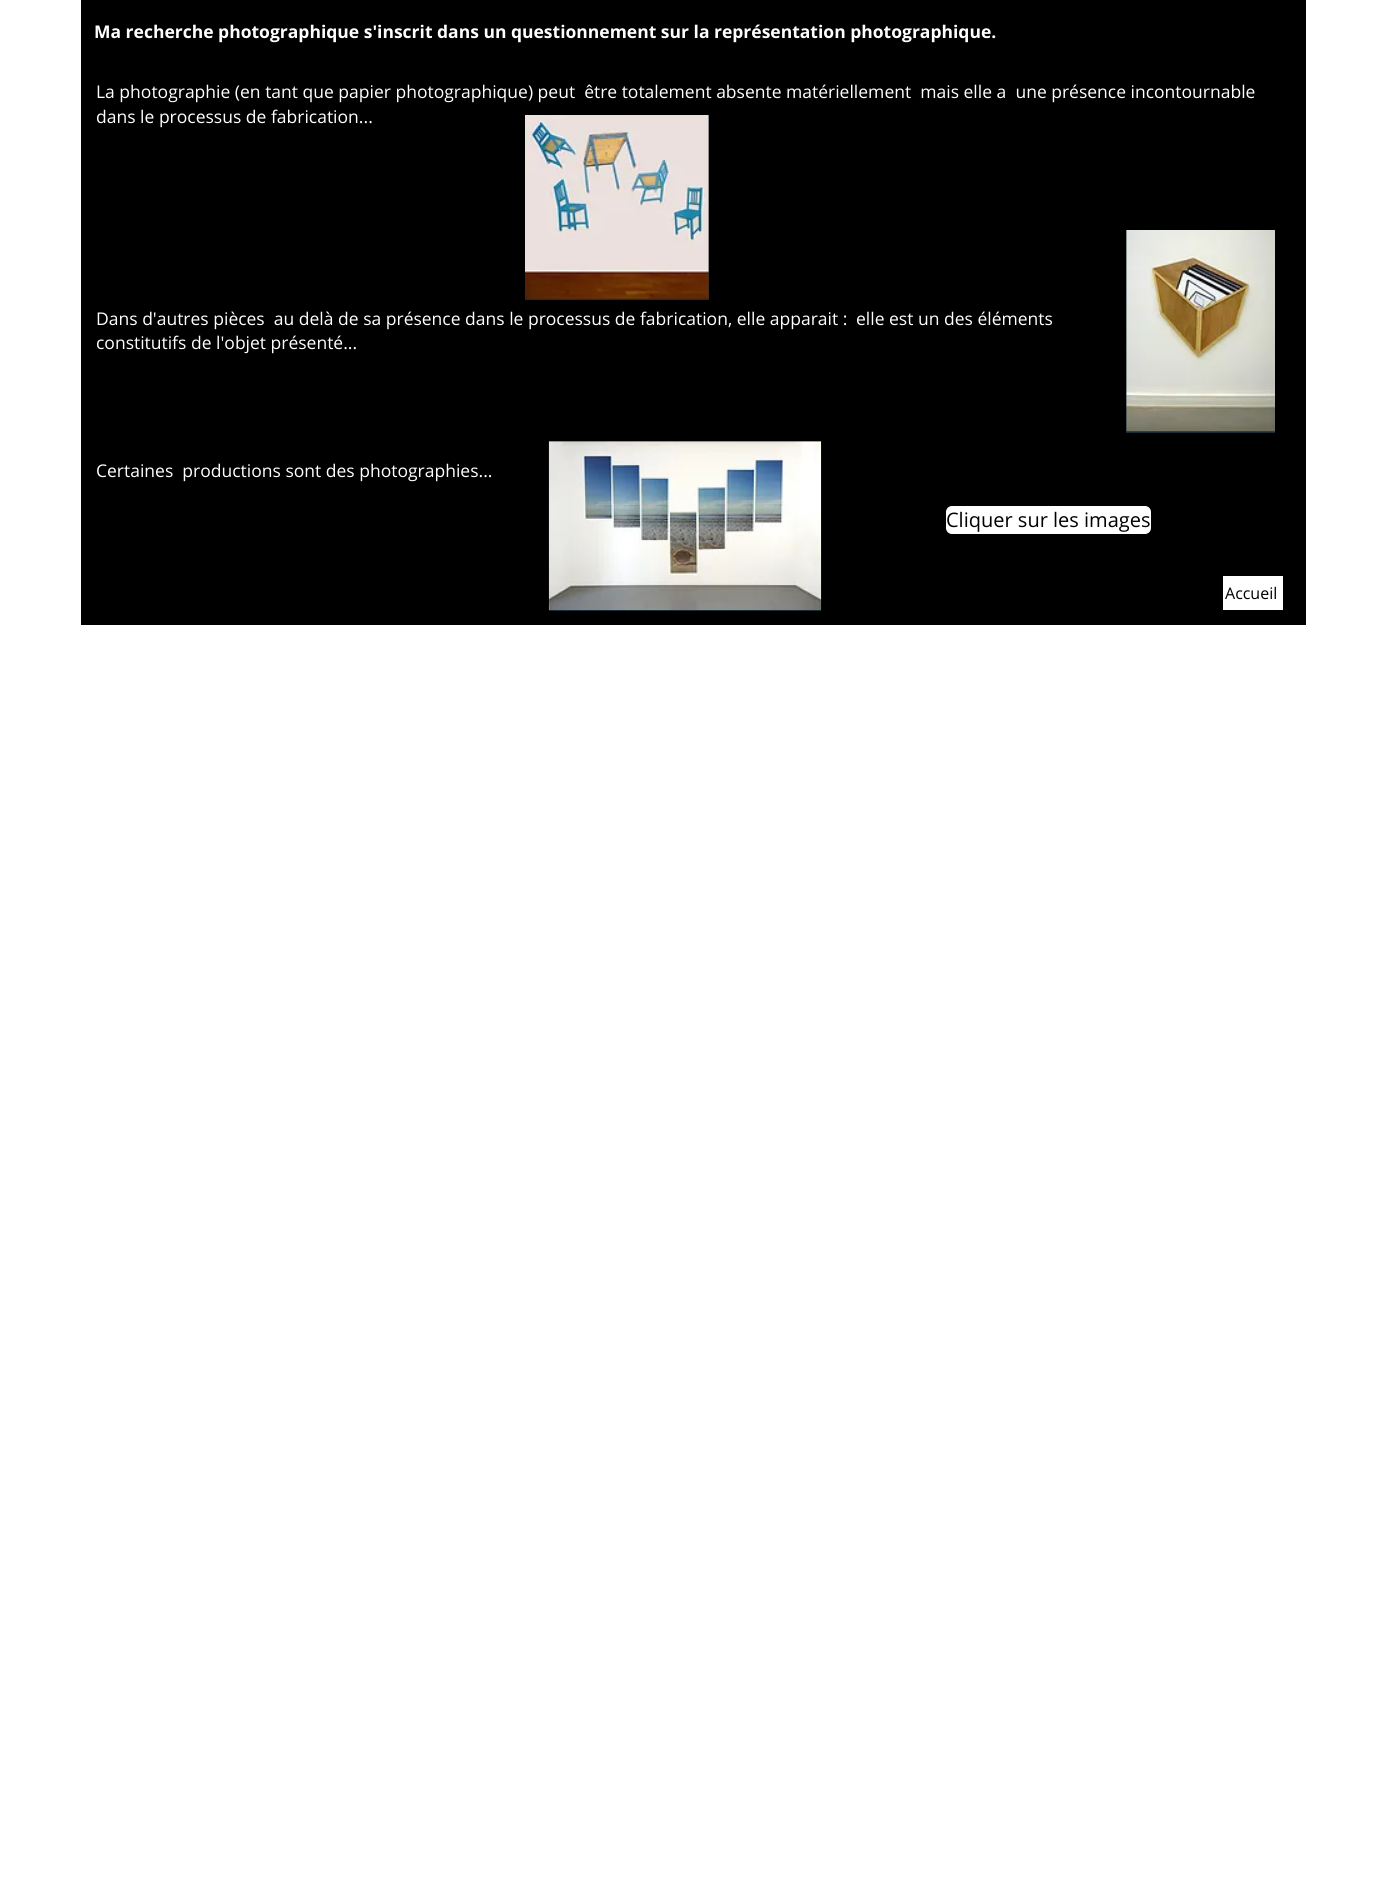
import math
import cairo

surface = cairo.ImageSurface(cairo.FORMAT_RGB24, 1386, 1899)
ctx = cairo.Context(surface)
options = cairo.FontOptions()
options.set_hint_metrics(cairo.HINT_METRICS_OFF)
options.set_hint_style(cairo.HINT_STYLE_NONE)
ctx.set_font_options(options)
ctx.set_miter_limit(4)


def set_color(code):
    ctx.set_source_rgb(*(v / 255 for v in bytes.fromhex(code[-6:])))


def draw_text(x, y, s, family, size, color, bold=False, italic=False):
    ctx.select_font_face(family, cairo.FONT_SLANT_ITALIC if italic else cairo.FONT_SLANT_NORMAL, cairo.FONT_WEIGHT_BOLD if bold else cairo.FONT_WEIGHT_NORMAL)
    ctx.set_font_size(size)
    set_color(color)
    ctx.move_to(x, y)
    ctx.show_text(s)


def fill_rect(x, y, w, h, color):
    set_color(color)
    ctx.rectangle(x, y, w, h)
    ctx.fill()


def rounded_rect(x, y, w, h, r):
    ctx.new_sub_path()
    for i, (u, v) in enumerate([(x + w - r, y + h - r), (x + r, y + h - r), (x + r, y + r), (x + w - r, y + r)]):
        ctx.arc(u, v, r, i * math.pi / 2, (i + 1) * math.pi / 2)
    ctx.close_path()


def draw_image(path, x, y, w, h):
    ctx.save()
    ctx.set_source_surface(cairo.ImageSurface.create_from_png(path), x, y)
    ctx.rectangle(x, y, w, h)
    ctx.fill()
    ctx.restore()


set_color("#ffffff")
ctx.paint()
fill_rect(81, 0, 1225, 625, "#000000")
draw_text(94, 38, "Ma recherche photographique s'inscrit dans un questionnement sur la représentation photographique.", "Open Sans", 17.5, "#ffffff", bold=True)
draw_text(96, 98, "La photographie (en tant que papier photographique) peut  être totalement absente matériellement  mais elle a  une présence incontournable", "Open Sans", 17.5, "#ffffff")
draw_text(96, 123, "dans le processus de fabrication...", "Open Sans", 17.5, "#ffffff")
fill_rect(525, 115, 184, 185, "#192d39")
draw_image("assets/img1.png", 525, 115, 184, 184)
draw_text(96, 325, "Dans d'autres pièces  au delà de sa présence dans le processus de fabrication, elle apparait :", "Open Sans", 17.5, "#ffffff")
draw_text(856, 325, "elle est un des éléments", "Open Sans", 17.5, "#ffffff")
draw_text(96, 349, "constitutifs de l'objet présenté...", "Open Sans", 17.5, "#ffffff")
fill_rect(1126, 230, 149, 203, "#192d39")
draw_image("assets/img2.png", 1126, 230, 149, 202)
draw_text(96, 477, "Certaines  productions sont des photographies...", "Open Sans", 17.5, "#ffffff")
fill_rect(549, 441, 272, 170, "#192d39")
draw_image("assets/img3.png", 548, 441, 274, 169)
set_color("#ffffff")
rounded_rect(946, 506, 205, 28, 6)
ctx.fill()
draw_text(946, 527, "Cliquer sur les images", "Open Sans", 20, "#000000")
fill_rect(1223, 576, 60, 34, "#ffffff")
draw_text(1225, 599, "Accueil", "Open Sans", 16, "#000000")
surface.write_to_png("output.png")
